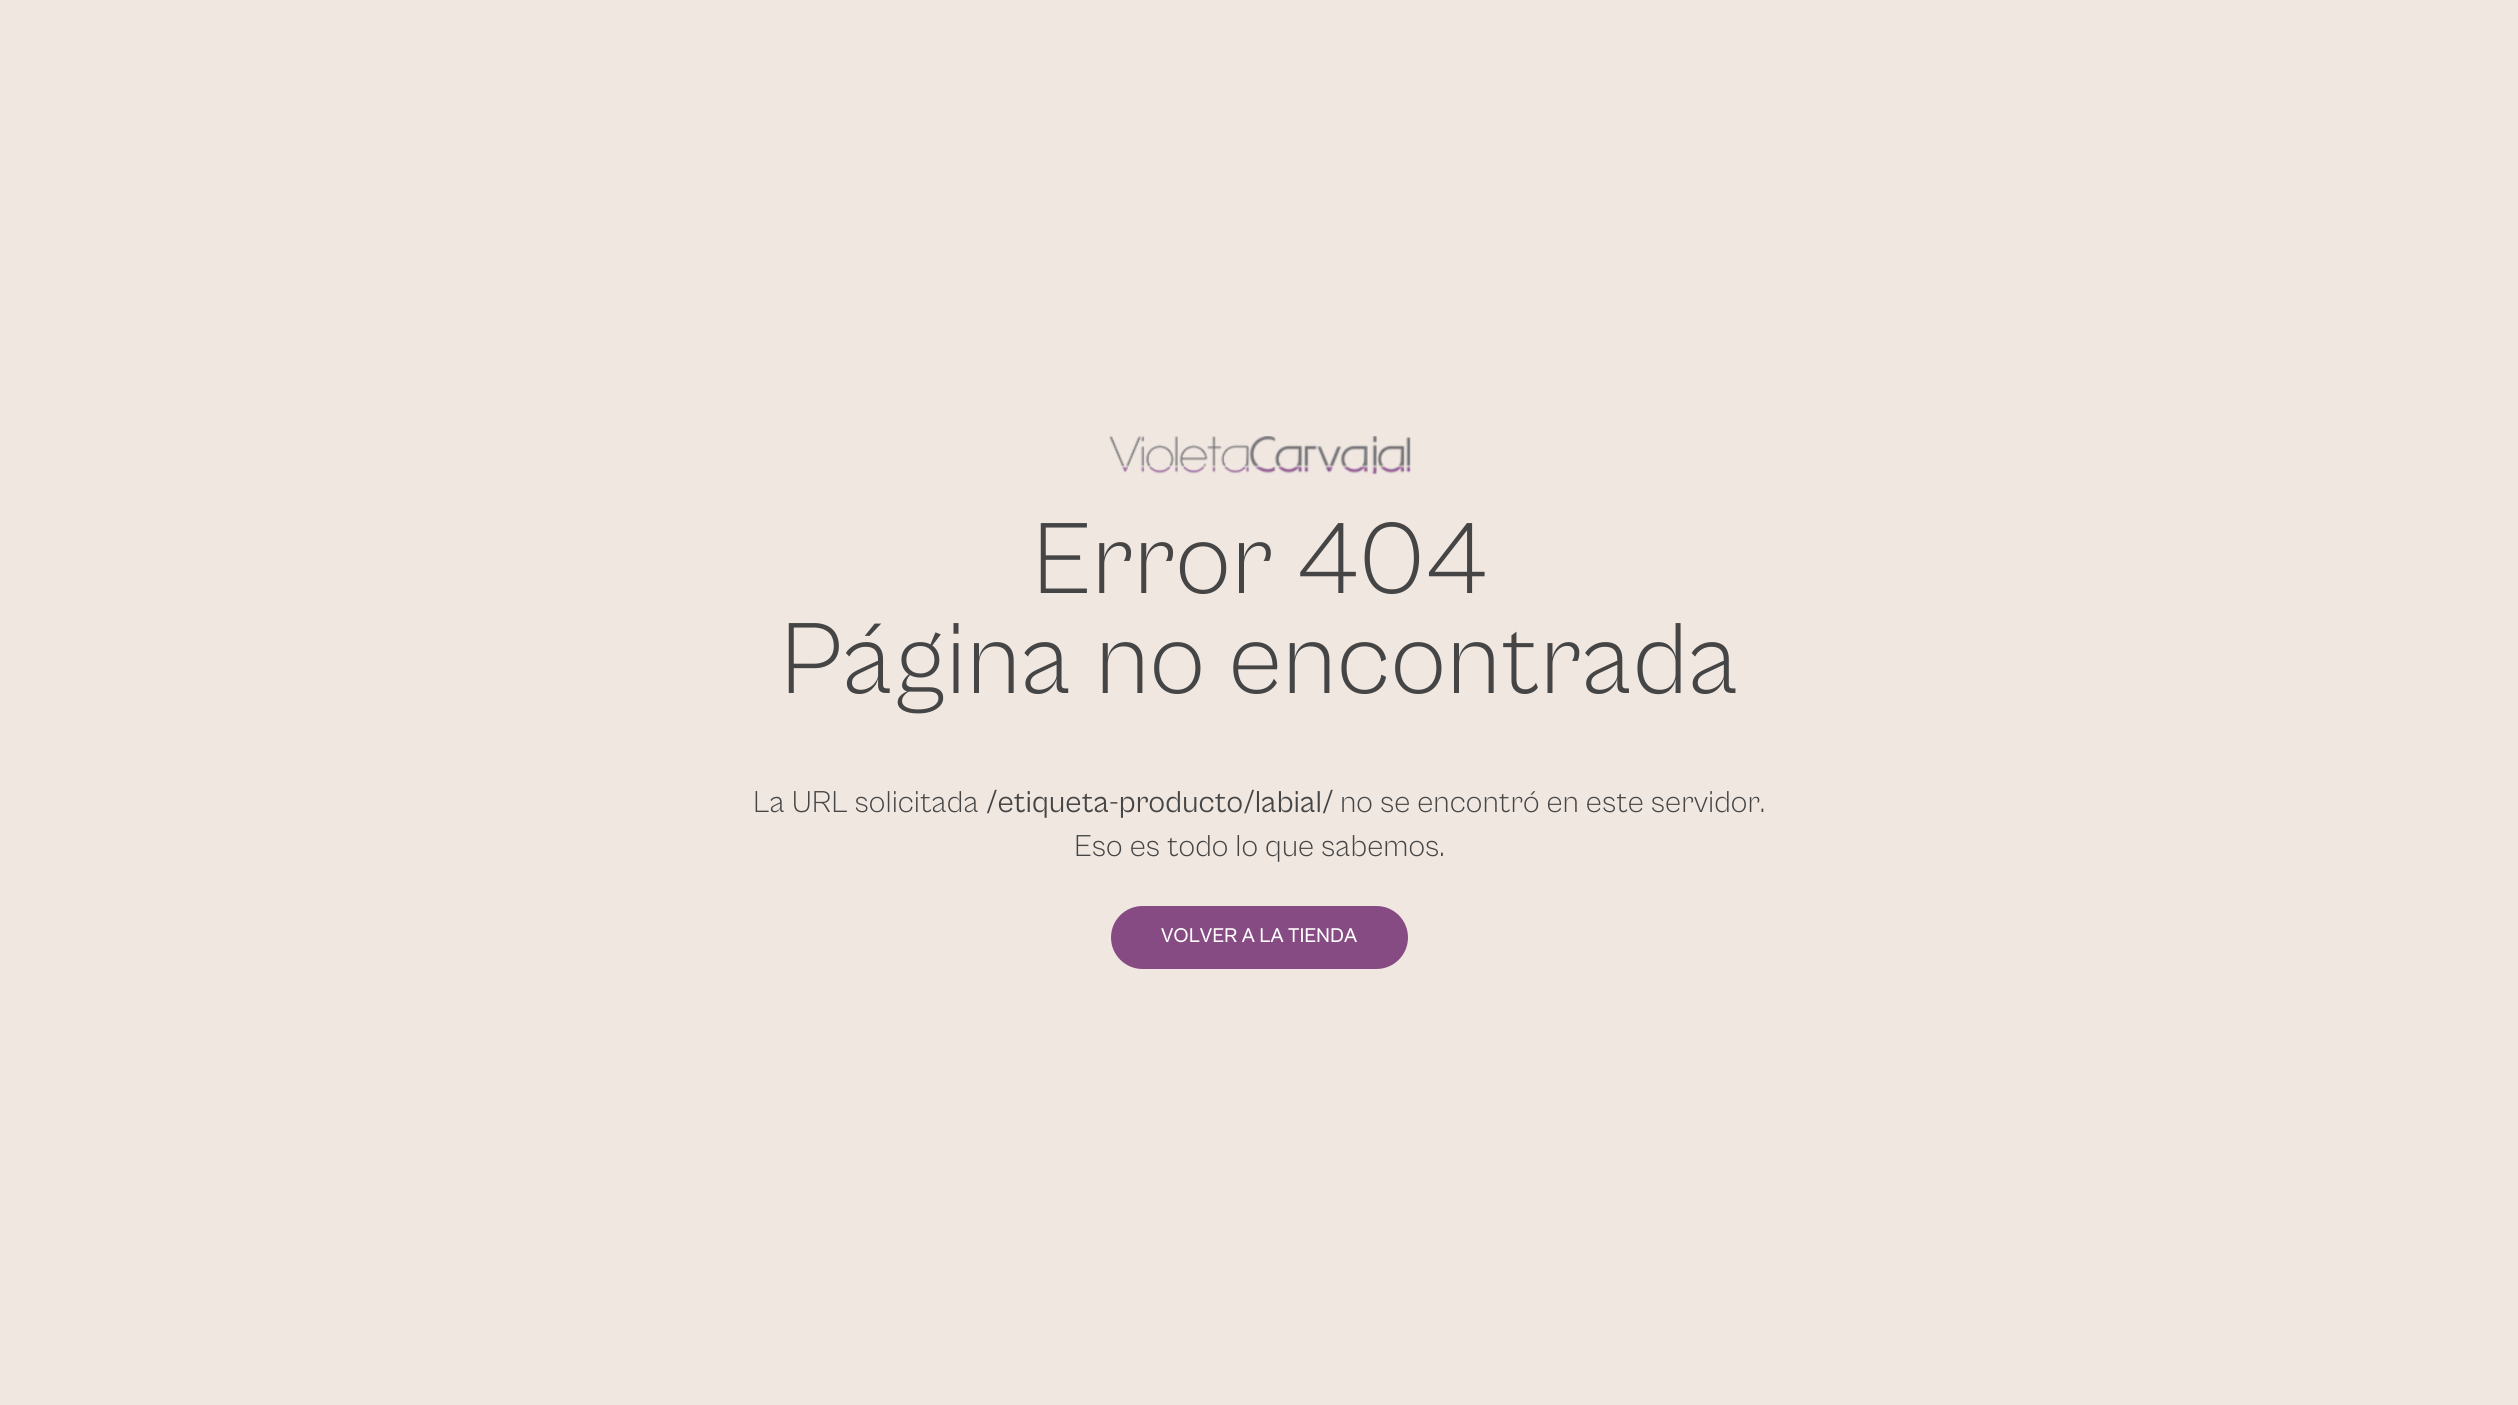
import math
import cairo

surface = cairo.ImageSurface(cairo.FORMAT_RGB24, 2518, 1405)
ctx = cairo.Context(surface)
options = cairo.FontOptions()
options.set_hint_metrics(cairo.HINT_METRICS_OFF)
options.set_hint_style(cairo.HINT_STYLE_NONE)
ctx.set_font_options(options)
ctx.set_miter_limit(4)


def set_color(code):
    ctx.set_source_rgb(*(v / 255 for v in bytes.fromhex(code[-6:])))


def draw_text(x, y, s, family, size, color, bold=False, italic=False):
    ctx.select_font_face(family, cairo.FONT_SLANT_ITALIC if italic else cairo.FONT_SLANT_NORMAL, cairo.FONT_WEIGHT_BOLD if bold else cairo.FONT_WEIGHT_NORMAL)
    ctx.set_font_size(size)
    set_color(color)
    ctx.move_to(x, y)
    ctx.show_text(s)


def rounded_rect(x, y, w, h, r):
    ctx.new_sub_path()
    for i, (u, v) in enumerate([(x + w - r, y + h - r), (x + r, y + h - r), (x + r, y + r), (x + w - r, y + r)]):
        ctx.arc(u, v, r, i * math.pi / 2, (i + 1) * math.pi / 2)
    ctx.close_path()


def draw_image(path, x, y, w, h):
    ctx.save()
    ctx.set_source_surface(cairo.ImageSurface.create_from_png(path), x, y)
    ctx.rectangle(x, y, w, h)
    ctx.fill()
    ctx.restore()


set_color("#f0e7e1")
ctx.paint()
draw_image("assets/img1.png", 1109, 436, 302, 39)
draw_text(1032, 593, "Error 404", "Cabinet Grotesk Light", 104.4, "#454545")
draw_text(780, 693, "Página no encontrada", "Cabinet Grotesk Light", 104.4, "#454545")
draw_text(753, 812, "La URL solicitada", "Cabinet Grotesk Light", 31.25, "#454545")
draw_text(986, 812, "/etiqueta-producto/labial/", "Cabinet Grotesk", 31.25, "#454545")
draw_text(1340, 812, "no se encontró en este servidor.", "Cabinet Grotesk Light", 31.25, "#454545")
draw_text(1074, 856, "Eso es todo lo que sabemos.", "Cabinet Grotesk Light", 31.25, "#454545")
set_color("#874b83")
rounded_rect(1111, 906, 297, 63, 31.5)
ctx.fill()
draw_text(1161, 942, "VOLVER A LA TIENDA", "Cabinet Grotesk Medium", 20.6, "#ffffff")
surface.write_to_png("output.png")
